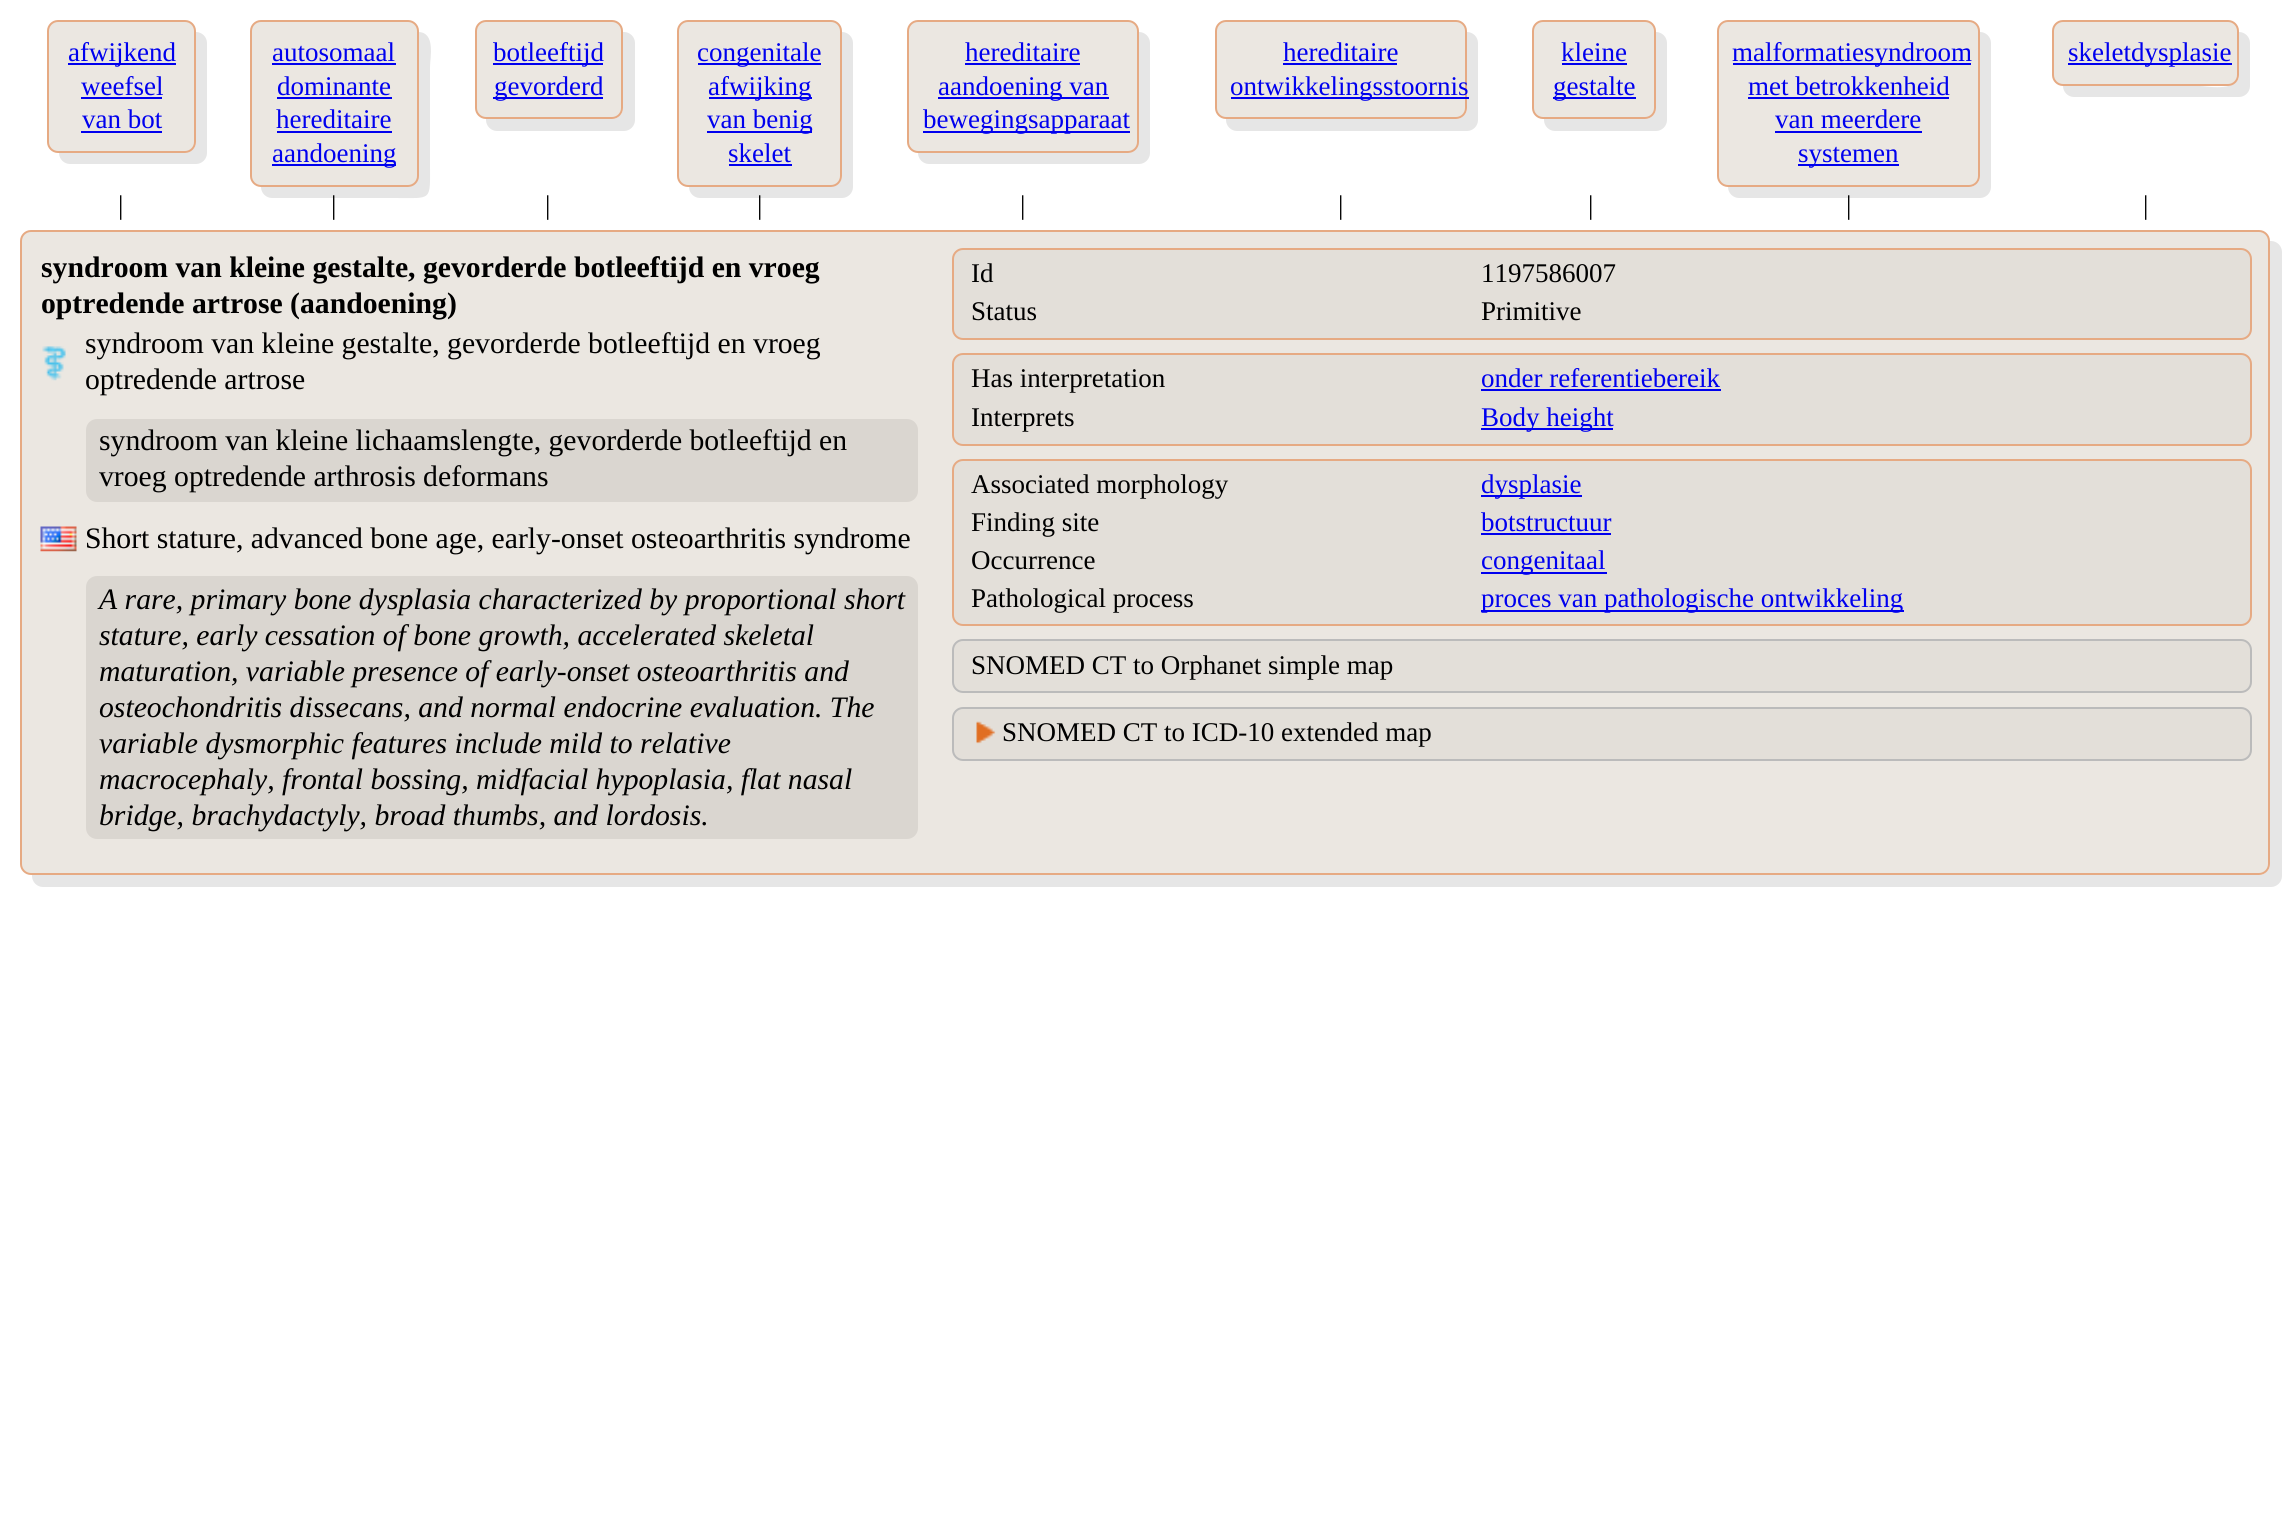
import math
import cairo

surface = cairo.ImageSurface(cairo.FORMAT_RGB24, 2290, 1527)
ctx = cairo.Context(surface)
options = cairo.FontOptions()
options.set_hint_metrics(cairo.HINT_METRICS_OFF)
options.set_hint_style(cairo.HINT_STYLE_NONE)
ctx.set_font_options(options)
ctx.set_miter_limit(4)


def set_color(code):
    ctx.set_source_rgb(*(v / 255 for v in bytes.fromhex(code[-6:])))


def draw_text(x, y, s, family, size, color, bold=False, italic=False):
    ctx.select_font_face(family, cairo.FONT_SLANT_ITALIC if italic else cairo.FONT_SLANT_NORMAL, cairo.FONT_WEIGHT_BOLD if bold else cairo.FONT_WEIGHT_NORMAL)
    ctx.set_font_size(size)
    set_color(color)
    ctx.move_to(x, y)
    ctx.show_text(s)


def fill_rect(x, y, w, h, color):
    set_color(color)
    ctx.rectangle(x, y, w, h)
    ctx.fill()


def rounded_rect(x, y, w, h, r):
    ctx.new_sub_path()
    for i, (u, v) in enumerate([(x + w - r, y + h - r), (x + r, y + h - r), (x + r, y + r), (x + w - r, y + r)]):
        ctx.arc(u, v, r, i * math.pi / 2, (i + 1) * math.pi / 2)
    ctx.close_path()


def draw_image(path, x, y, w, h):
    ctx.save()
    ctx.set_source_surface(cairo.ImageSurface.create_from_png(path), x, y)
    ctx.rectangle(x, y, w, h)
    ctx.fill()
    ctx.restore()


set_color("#ffffff")
ctx.paint()
set_color("#e6e6e6")
ctx.new_path()
ctx.move_to(59, 153)
ctx.curve_to(59, 159, 64, 164, 70, 164)
ctx.line_to(196, 164)
ctx.curve_to(202, 164, 207, 159, 207, 153)
ctx.line_to(207, 43)
ctx.curve_to(207, 37, 202, 32, 196, 32)
ctx.line_to(196, 142)
ctx.curve_to(196, 148, 191, 153, 184, 153)
ctx.close_path()
ctx.fill()
set_color("#ebe7e1")
rounded_rect(48, 21, 147, 131, 10)
ctx.fill_preserve()
set_color("#e6aa83")
ctx.stroke()
fill_rect(68, 63, 108, 2, "#0000ee")
draw_text(68, 61, "afwijkend", "Liberation Serif", 27, "#0000ee")
draw_text(81, 95, "weefsel", "Liberation Serif", 27, "#0000ee")
fill_rect(81, 97, 81, 2, "#0000ee")
draw_text(82, 128, "van bot", "Liberation Serif", 27, "#0000ee")
fill_rect(81, 131, 81, 2, "#0000ee")
set_color("#e6e6e6")
ctx.new_path()
ctx.move_to(261, 187)
ctx.curve_to(261, 193, 266, 198, 272, 198)
ctx.line_to(394, 198)
ctx.curve_to(433, 198, 430, 202, 430, 163)
ctx.line_to(430, 67)
ctx.curve_to(430, 58, 436, 32, 418, 32)
ctx.line_to(418, 176)
ctx.curve_to(418, 182, 413, 187, 407, 187)
ctx.close_path()
ctx.fill()
set_color("#ebe7e1")
rounded_rect(251, 21, 167, 165, 10)
ctx.fill_preserve()
set_color("#e6aa83")
ctx.stroke()
draw_text(272, 61, "autosomaal", "Liberation Serif", 27, "#0000ee")
fill_rect(272, 63, 124, 2, "#0000ee")
draw_text(277, 95, "dominante", "Liberation Serif", 27, "#0000ee")
fill_rect(277, 97, 115, 2, "#0000ee")
draw_text(276, 128, "hereditaire", "Liberation Serif", 27, "#0000ee")
fill_rect(277, 131, 115, 2, "#0000ee")
fill_rect(272, 164, 124, 2, "#0000ee")
draw_text(272, 162, "aandoening", "Liberation Serif", 27, "#0000ee")
set_color("#e6e6e6")
ctx.new_path()
ctx.move_to(486, 119)
ctx.line_to(486, 120)
ctx.curve_to(486, 126, 491, 131, 497, 131)
ctx.line_to(624, 131)
ctx.curve_to(630, 131, 635, 126, 635, 120)
ctx.line_to(635, 43)
ctx.curve_to(635, 37, 630, 32, 624, 32)
ctx.line_to(623, 32)
ctx.line_to(623, 108)
ctx.curve_to(623, 114, 618, 119, 612, 119)
ctx.close_path()
ctx.fill()
set_color("#ebe7e1")
rounded_rect(476, 21, 146, 97, 10)
ctx.fill_preserve()
set_color("#e6aa83")
ctx.stroke()
fill_rect(493, 63, 110, 2, "#0000ee")
draw_text(493, 61, "botleeftijd", "Liberation Serif", 27, "#0000ee")
fill_rect(493, 97, 110, 2, "#0000ee")
draw_text(494, 95, "gevorderd", "Liberation Serif", 27, "#0000ee")
set_color("#e6e6e6")
ctx.new_path()
ctx.move_to(689, 187)
ctx.curve_to(689, 193, 694, 198, 700, 198)
ctx.line_to(842, 198)
ctx.curve_to(848, 198, 853, 193, 853, 187)
ctx.line_to(853, 43)
ctx.curve_to(853, 37, 848, 32, 842, 32)
ctx.line_to(842, 176)
ctx.curve_to(842, 182, 836, 187, 830, 187)
ctx.close_path()
ctx.fill()
set_color("#ebe7e1")
rounded_rect(678, 21, 163, 165, 10)
ctx.fill_preserve()
set_color("#e6aa83")
ctx.stroke()
fill_rect(698, 63, 123, 2, "#0000ee")
draw_text(697, 61, "congenitale", "Liberation Serif", 27, "#0000ee")
fill_rect(709, 97, 103, 2, "#0000ee")
draw_text(708, 95, "afwijking", "Liberation Serif", 27, "#0000ee")
fill_rect(707, 131, 105, 2, "#0000ee")
draw_text(707, 128, "van benig", "Liberation Serif", 27, "#0000ee")
draw_text(728, 162, "skelet", "Liberation Serif", 27, "#0000ee")
fill_rect(729, 164, 63, 2, "#0000ee")
set_color("#e6e6e6")
ctx.new_path()
ctx.move_to(918, 153)
ctx.curve_to(918, 159, 923, 164, 929, 164)
ctx.line_to(1139, 164)
ctx.curve_to(1145, 164, 1150, 159, 1150, 153)
ctx.line_to(1150, 43)
ctx.curve_to(1150, 37, 1145, 32, 1139, 32)
ctx.line_to(1138, 32)
ctx.line_to(1138, 142)
ctx.curve_to(1138, 148, 1133, 153, 1127, 153)
ctx.close_path()
ctx.fill()
set_color("#ebe7e1")
rounded_rect(908, 21, 230, 131, 10)
ctx.fill_preserve()
set_color("#e6aa83")
ctx.stroke()
draw_text(965, 61, "hereditaire", "Liberation Serif", 27, "#0000ee")
fill_rect(965, 63, 115, 2, "#0000ee")
fill_rect(938, 97, 171, 2, "#0000ee")
draw_text(938, 95, "aandoening van", "Liberation Serif", 27, "#0000ee")
fill_rect(923, 131, 207, 2, "#0000ee")
draw_text(923, 128, "bewegingsapparaat", "Liberation Serif", 27, "#0000ee")
set_color("#e6e6e6")
ctx.new_path()
ctx.move_to(1226, 119)
ctx.line_to(1226, 120)
ctx.curve_to(1226, 126, 1231, 131, 1237, 131)
ctx.line_to(1467, 131)
ctx.curve_to(1473, 131, 1478, 126, 1478, 120)
ctx.line_to(1478, 43)
ctx.curve_to(1478, 37, 1473, 32, 1467, 32)
ctx.line_to(1467, 110)
ctx.curve_to(1466, 115, 1461, 119, 1456, 119)
ctx.close_path()
ctx.fill()
set_color("#ebe7e1")
rounded_rect(1216, 21, 250, 97, 10)
ctx.fill_preserve()
set_color("#e6aa83")
ctx.stroke()
draw_text(1283, 61, "hereditaire", "Liberation Serif", 27, "#0000ee")
fill_rect(1283, 63, 114, 2, "#0000ee")
fill_rect(1231, 97, 238, 2, "#0000ee")
draw_text(1230, 95, "ontwikkelingsstoornis", "Liberation Serif", 27, "#0000ee")
set_color("#e6e6e6")
ctx.new_path()
ctx.move_to(1544, 119)
ctx.line_to(1544, 120)
ctx.curve_to(1544, 126, 1549, 131, 1555, 131)
ctx.line_to(1656, 131)
ctx.curve_to(1662, 131, 1667, 126, 1667, 120)
ctx.line_to(1667, 43)
ctx.curve_to(1667, 37, 1662, 32, 1656, 32)
ctx.line_to(1656, 108)
ctx.curve_to(1656, 114, 1651, 119, 1645, 119)
ctx.close_path()
ctx.fill()
set_color("#ebe7e1")
rounded_rect(1533, 21, 122, 97, 10)
ctx.fill_preserve()
set_color("#e6aa83")
ctx.stroke()
draw_text(1561, 61, "kleine", "Liberation Serif", 27, "#0000ee")
fill_rect(1562, 63, 65, 2, "#0000ee")
fill_rect(1553, 97, 83, 2, "#0000ee")
draw_text(1553, 95, "gestalte", "Liberation Serif", 27, "#0000ee")
set_color("#e6e6e6")
ctx.new_path()
ctx.move_to(1728, 187)
ctx.curve_to(1728, 193, 1733, 198, 1739, 198)
ctx.line_to(1980, 198)
ctx.curve_to(1986, 198, 1991, 193, 1991, 187)
ctx.line_to(1991, 43)
ctx.curve_to(1991, 37, 1986, 32, 1980, 32)
ctx.line_to(1980, 176)
ctx.curve_to(1980, 182, 1975, 187, 1969, 187)
ctx.close_path()
ctx.fill()
set_color("#ebe7e1")
rounded_rect(1718, 21, 261, 165, 10)
ctx.fill_preserve()
set_color("#e6aa83")
ctx.stroke()
fill_rect(1733, 63, 238, 2, "#0000ee")
draw_text(1732, 61, "malformatiesyndroom", "Liberation Serif", 27, "#0000ee")
draw_text(1748, 95, "met betrokkenheid", "Liberation Serif", 27, "#0000ee")
fill_rect(1748, 97, 201, 2, "#0000ee")
draw_text(1775, 128, "van meerdere", "Liberation Serif", 27, "#0000ee")
fill_rect(1775, 131, 147, 2, "#0000ee")
fill_rect(1798, 164, 101, 2, "#0000ee")
draw_text(1798, 162, "systemen", "Liberation Serif", 27, "#0000ee")
set_color("#e6e6e6")
ctx.new_path()
ctx.move_to(2063, 85)
ctx.line_to(2063, 86)
ctx.curve_to(2063, 92, 2068, 97, 2074, 97)
ctx.line_to(2239, 97)
ctx.curve_to(2245, 97, 2250, 92, 2250, 86)
ctx.line_to(2250, 43)
ctx.curve_to(2250, 37, 2245, 32, 2239, 32)
ctx.line_to(2239, 77)
ctx.curve_to(2235, 92, 2206, 86, 2200, 86)
ctx.close_path()
ctx.fill()
set_color("#ebe7e1")
rounded_rect(2053, 21, 185, 64, 10)
ctx.fill_preserve()
set_color("#e6aa83")
ctx.stroke()
fill_rect(2068, 63, 164, 2, "#0000ee")
draw_text(2068, 61, "skeletdysplasie", "Liberation Serif", 27, "#0000ee")
draw_text(118, 214, "|", "Liberation Serif", 27, "#000000")
draw_text(331, 214, "|", "Liberation Serif", 27, "#000000")
draw_text(545, 214, "|", "Liberation Serif", 27, "#000000")
draw_text(757, 214, "|", "Liberation Serif", 27, "#000000")
draw_text(1020, 214, "|", "Liberation Serif", 27, "#000000")
draw_text(1338, 214, "|", "Liberation Serif", 27, "#000000")
draw_text(1588, 214, "|", "Liberation Serif", 27, "#000000")
draw_text(1846, 214, "|", "Liberation Serif", 27, "#000000")
draw_text(2143, 214, "|", "Liberation Serif", 27, "#000000")
set_color("#e6e6e6")
ctx.new_path()
ctx.move_to(32, 875)
ctx.line_to(32, 876)
ctx.curve_to(32, 882, 37, 887, 43, 887)
ctx.line_to(2271, 887)
ctx.curve_to(2277, 887, 2282, 882, 2282, 876)
ctx.line_to(2282, 252)
ctx.curve_to(2282, 246, 2277, 241, 2271, 241)
ctx.line_to(2270, 241)
ctx.line_to(2270, 864)
ctx.curve_to(2270, 870, 2265, 875, 2259, 875)
ctx.close_path()
ctx.fill()
set_color("#ebe7e1")
rounded_rect(21, 231, 2248, 643, 10)
ctx.fill_preserve()
set_color("#e6aa83")
ctx.stroke()
draw_text(41, 277, "syndroom van kleine gestalte, gevorderde botleeftijd en vroeg", "Liberation Serif", 29.7, "#000000", bold=True)
draw_text(41, 313, "optredende artrose (aandoening)", "Liberation Serif", 29.7, "#000000", bold=True)
draw_image("assets/img1.png", 42, 346, 24, 35)
draw_text(85, 353, "syndroom van kleine gestalte, gevorderde botleeftijd en vroeg", "Liberation Serif", 29.7, "#000000")
draw_text(85, 389, "optredende artrose", "Liberation Serif", 29.7, "#000000")
set_color("#dad6d0")
rounded_rect(86, 419, 832, 83, 11)
ctx.fill()
draw_text(99, 450, "syndroom van kleine lichaamslengte, gevorderde botleeftijd en", "Liberation Serif", 29.7, "#000000")
draw_text(99, 486, "vroeg optredende arthrosis deformans", "Liberation Serif", 29.7, "#000000")
draw_image("assets/img2.png", 40, 526, 37, 26)
draw_text(85, 548, "Short stature, advanced bone age, early-onset osteoarthritis syndrome", "Liberation Serif", 29.7, "#000000")
set_color("#dad6d0")
rounded_rect(86, 576, 832, 263, 11)
ctx.fill()
draw_text(99, 609, "A rare, primary bone dysplasia characterized by proportional short", "Liberation Serif", 29.7, "#000000", italic=True)
draw_text(99, 645, "stature, early cessation of bone growth, accelerated skeletal", "Liberation Serif", 29.7, "#000000", italic=True)
draw_text(99, 681, "maturation, variable presence of early-onset osteoarthritis and", "Liberation Serif", 29.7, "#000000", italic=True)
draw_text(99, 717, "osteochondritis dissecans, and normal endocrine evaluation. The", "Liberation Serif", 29.7, "#000000", italic=True)
draw_text(99, 753, "variable dysmorphic features include mild to relative", "Liberation Serif", 29.7, "#000000", italic=True)
draw_text(99, 789, "macrocephaly, frontal bossing, midfacial hypoplasia, flat nasal", "Liberation Serif", 29.7, "#000000", italic=True)
draw_text(99, 825, "bridge, brachydactyly, broad thumbs, and lordosis.", "Liberation Serif", 29.7, "#000000", italic=True)
set_color("#e3dfd9")
rounded_rect(953, 249, 1298, 90, 10)
ctx.fill_preserve()
set_color("#e6aa83")
ctx.stroke()
draw_text(971, 282, "Id", "Liberation Serif", 27, "#000000")
draw_text(1481, 282, "1197586007", "Liberation Serif", 27, "#000000")
draw_text(971, 320, "Status", "Liberation Serif", 27, "#000000")
draw_text(1481, 320, "Primitive", "Liberation Serif", 27, "#000000")
set_color("#e3dfd9")
rounded_rect(953, 354, 1298, 91, 10)
ctx.fill_preserve()
set_color("#e6aa83")
ctx.stroke()
draw_text(971, 387, "Has interpretation", "Liberation Serif", 27, "#000000")
draw_text(1481, 387, "onder referentiebereik", "Liberation Serif", 27, "#0000ee")
fill_rect(1481, 389, 240, 2, "#0000ee")
draw_text(971, 426, "Interprets", "Liberation Serif", 27, "#000000")
fill_rect(1481, 428, 132, 2, "#0000ee")
draw_text(1481, 426, "Body height", "Liberation Serif", 27, "#0000ee")
set_color("#e3dfd9")
rounded_rect(953, 460, 1298, 165, 10)
ctx.fill_preserve()
set_color("#e6aa83")
ctx.stroke()
draw_text(971, 493, "Associated morphology", "Liberation Serif", 27, "#000000")
fill_rect(1481, 495, 101, 2, "#0000ee")
draw_text(1481, 493, "dysplasie", "Liberation Serif", 27, "#0000ee")
draw_text(971, 531, "Finding site", "Liberation Serif", 27, "#000000")
draw_text(1481, 531, "botstructuur", "Liberation Serif", 27, "#0000ee")
fill_rect(1481, 533, 130, 2, "#0000ee")
draw_text(971, 569, "Occurrence", "Liberation Serif", 27, "#000000")
fill_rect(1481, 572, 126, 2, "#0000ee")
draw_text(1481, 569, "congenitaal", "Liberation Serif", 27, "#0000ee")
draw_text(971, 607, "Pathological process", "Liberation Serif", 27, "#000000")
fill_rect(1481, 610, 423, 2, "#0000ee")
draw_text(1481, 607, "proces van pathologische ontwikkeling", "Liberation Serif", 27, "#0000ee")
set_color("#e3dfd9")
rounded_rect(953, 640, 1298, 52, 10)
ctx.fill_preserve()
set_color("#bbbbbb")
ctx.stroke()
draw_text(971, 674, "SNOMED CT to Orphanet simple map", "Liberation Serif", 27, "#000000")
set_color("#e3dfd9")
rounded_rect(953, 708, 1298, 52, 10)
ctx.fill_preserve()
set_color("#bbbbbb")
ctx.stroke()
draw_image("assets/img3.png", 976, 721, 20, 23)
draw_text(1002, 741, "SNOMED CT to ICD-10 extended map", "Liberation Serif", 27, "#000000")
surface.write_to_png("output.png")
